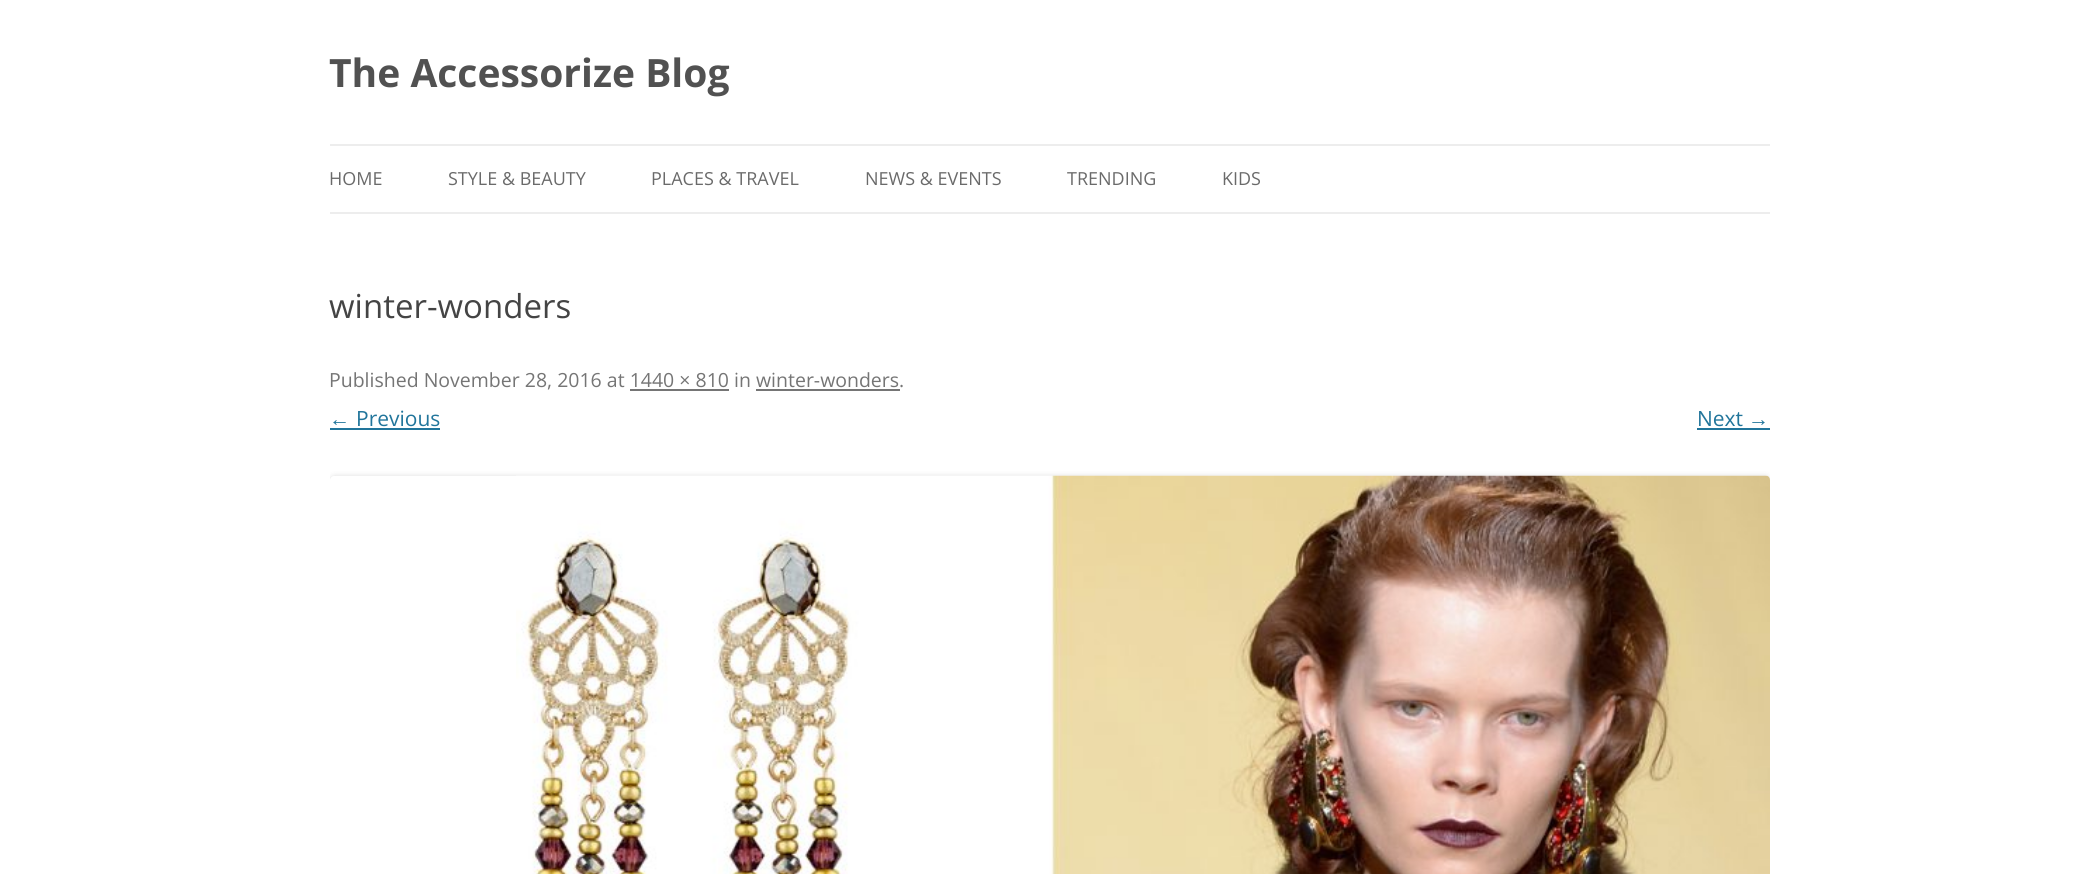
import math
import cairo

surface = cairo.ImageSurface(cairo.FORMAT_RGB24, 2098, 874)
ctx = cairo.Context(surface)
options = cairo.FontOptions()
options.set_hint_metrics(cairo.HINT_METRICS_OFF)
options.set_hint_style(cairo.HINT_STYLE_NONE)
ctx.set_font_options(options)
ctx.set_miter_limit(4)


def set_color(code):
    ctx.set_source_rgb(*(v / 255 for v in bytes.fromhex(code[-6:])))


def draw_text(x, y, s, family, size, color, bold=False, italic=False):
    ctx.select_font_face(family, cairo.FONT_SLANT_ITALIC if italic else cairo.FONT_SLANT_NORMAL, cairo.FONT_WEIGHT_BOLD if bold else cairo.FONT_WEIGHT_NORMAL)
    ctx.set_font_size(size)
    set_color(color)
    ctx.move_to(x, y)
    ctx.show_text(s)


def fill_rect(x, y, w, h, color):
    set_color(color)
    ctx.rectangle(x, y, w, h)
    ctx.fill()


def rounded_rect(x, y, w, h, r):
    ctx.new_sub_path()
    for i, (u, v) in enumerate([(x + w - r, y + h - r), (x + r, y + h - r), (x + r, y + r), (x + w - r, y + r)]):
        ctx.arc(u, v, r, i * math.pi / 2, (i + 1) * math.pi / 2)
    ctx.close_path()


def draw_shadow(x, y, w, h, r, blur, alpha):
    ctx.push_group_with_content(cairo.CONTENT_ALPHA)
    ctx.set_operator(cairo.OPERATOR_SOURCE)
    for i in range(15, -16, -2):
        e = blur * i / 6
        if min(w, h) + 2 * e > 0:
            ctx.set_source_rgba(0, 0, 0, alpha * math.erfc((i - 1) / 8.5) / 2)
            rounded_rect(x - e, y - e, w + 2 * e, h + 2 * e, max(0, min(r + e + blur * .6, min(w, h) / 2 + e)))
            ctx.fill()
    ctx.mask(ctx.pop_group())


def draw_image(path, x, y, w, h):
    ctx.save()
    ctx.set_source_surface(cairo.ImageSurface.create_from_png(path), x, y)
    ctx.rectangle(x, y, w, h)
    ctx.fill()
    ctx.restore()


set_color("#ffffff")
ctx.paint()
draw_text(329, 87, "The Accessorize Blog", "Open Sans", 39, "#515151", bold=True)
fill_rect(330, 144, 1440, 2, "#ededed")
fill_rect(330, 212, 1440, 2, "#ededed")
draw_text(329, 185, "HOME", "Open Sans", 18, "#6a6a6a")
draw_text(448, 185, "STYLE & BEAUTY", "Open Sans", 18, "#6a6a6a")
draw_text(651, 185, "PLACES & TRAVEL", "Open Sans", 18, "#6a6a6a")
draw_text(865, 185, "NEWS & EVENTS", "Open Sans", 18, "#6a6a6a")
draw_text(1067, 185, "TRENDING", "Open Sans", 18, "#6a6a6a")
draw_text(1222, 185, "KIDS", "Open Sans", 18, "#6a6a6a")
draw_text(329, 318, "winter-wonders", "Open Sans", 33, "#444444")
draw_text(329, 387, "Published November 28, 2016 at 1440 × 810 in winter-wonders.", "Open Sans", 19.5, "#757575")
fill_rect(630, 389, 99, 2, "#757575")
fill_rect(756, 389, 144, 2, "#757575")
draw_text(329, 426, "←", "Liberation Sans", 21, "#21759b")
fill_rect(330, 428, 110, 2, "#21759b")
draw_text(356, 426, "Previous", "Open Sans", 21, "#21759b")
draw_text(1697, 426, "Next", "Open Sans", 21, "#21759b")
draw_text(1748, 426, "→", "Liberation Sans", 21, "#21759b")
fill_rect(1697, 428, 73, 2, "#21759b")
ctx.save()
ctx.rectangle(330, 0, 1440, 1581)
ctx.clip()
ctx.set_fill_rule(cairo.FILL_RULE_EVEN_ODD)
ctx.new_path()
ctx.move_to(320, 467)
ctx.line_to(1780, 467)
ctx.line_to(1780, 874)
ctx.line_to(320, 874)
ctx.close_path()
ctx.move_to(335, 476)
ctx.line_to(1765, 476)
ctx.curve_to(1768, 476, 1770, 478, 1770, 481)
ctx.line_to(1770, 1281)
ctx.curve_to(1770, 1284, 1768, 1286, 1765, 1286)
ctx.line_to(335, 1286)
ctx.curve_to(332, 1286, 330, 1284, 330, 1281)
ctx.line_to(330, 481)
ctx.curve_to(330, 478, 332, 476, 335, 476)
ctx.close_path()
ctx.clip()
set_color("#000000")
draw_shadow(330, 477, 1440, 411, 5, 3, 0.2)
ctx.restore()
draw_image("assets/img1.png", 516, 475, 1254, 399)
surface.write_to_png("output.png")
